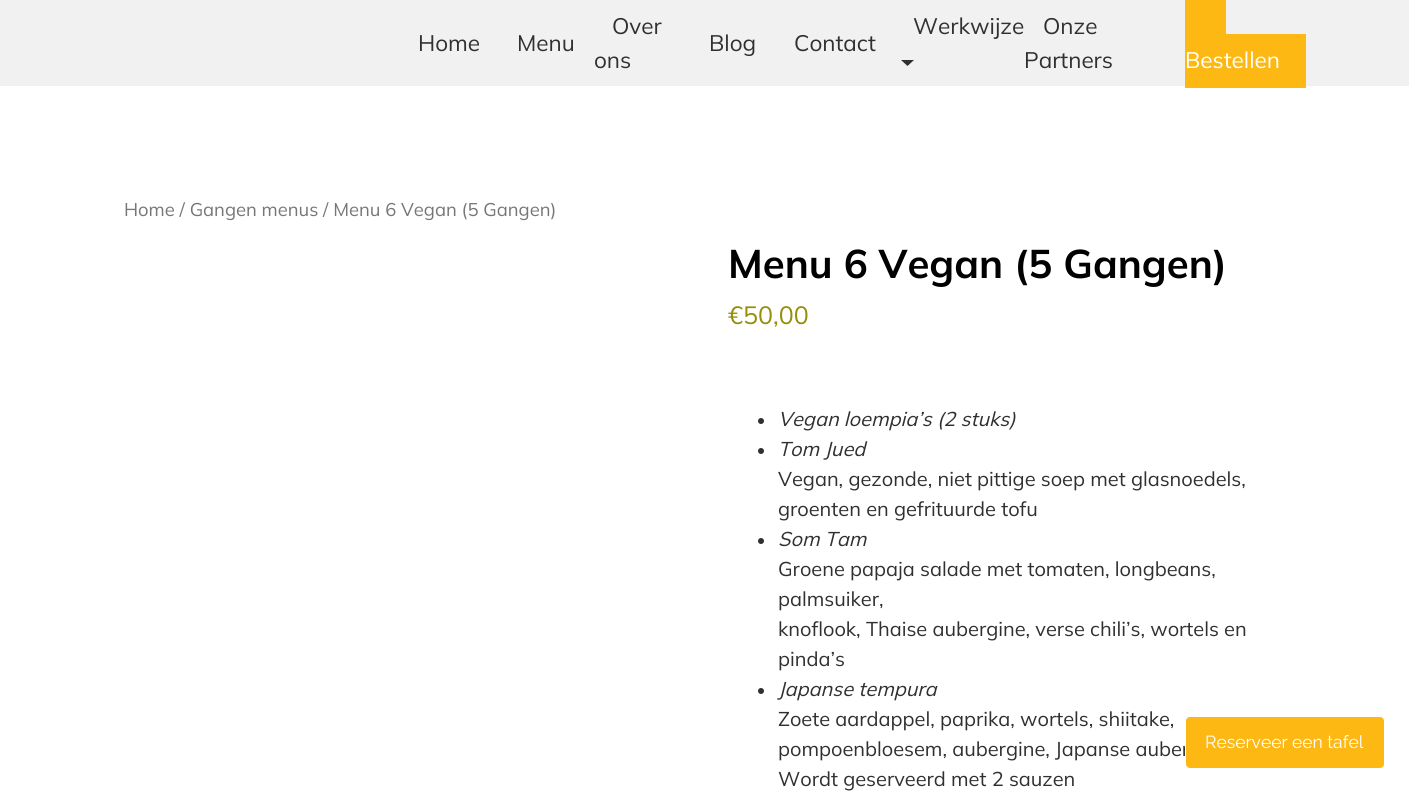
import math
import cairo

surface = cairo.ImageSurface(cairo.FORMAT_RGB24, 1409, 793)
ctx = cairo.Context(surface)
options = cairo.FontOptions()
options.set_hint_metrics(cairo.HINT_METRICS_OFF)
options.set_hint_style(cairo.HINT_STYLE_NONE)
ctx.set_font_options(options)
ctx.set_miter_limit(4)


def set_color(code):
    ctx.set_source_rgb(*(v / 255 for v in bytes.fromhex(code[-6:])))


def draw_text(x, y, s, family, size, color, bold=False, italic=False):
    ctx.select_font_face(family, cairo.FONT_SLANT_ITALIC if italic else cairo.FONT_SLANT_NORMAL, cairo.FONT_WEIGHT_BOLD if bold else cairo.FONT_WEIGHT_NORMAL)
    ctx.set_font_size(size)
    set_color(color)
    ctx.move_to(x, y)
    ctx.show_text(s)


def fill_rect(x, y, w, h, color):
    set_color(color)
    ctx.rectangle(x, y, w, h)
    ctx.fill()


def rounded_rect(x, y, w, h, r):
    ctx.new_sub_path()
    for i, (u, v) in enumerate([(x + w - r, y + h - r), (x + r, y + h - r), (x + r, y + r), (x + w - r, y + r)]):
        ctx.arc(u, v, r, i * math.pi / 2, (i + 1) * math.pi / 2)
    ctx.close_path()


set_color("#ffffff")
ctx.paint()
fill_rect(0, 0, 1409, 86, "#f1f1f1")
draw_text(418, 51, "Home", "Mulish", 22.5, "#303030")
draw_text(517, 51, "Menu", "Mulish", 22.5, "#303030")
draw_text(612, 34, "Over", "Mulish", 22.5, "#303030")
draw_text(594, 68, "ons", "Mulish", 22.5, "#303030")
draw_text(709, 51, "Blog", "Mulish", 22.5, "#303030")
draw_text(794, 51, "Contact", "Mulish", 22.5, "#303030")
draw_text(913, 34, "Werkwijze", "Mulish", 22.5, "#303030")
ctx.new_path()
ctx.move_to(901, 60)
ctx.line_to(914, 60)
ctx.line_to(907.5, 66)
ctx.close_path()
ctx.fill()
draw_text(1043, 34, "Onze", "Mulish", 22.5, "#303030")
draw_text(1024, 68, "Partners", "Mulish", 22.5, "#303030")
fill_rect(1185, 34, 121, 54, "#fdb813")
draw_text(1185, 68, "Bestellen", "Mulish", 22.5, "#ffffff")
fill_rect(1185, 0, 41, 34, "#fdb813")
draw_text(124, 216, "Home / Gangen menus / Menu 6 Vegan (5 Gangen)", "Mulish", 18.4, "#767676")
draw_text(728, 278, "Menu 6 Vegan (5 Gangen)", "Mulish", 40, "#000000", bold=True)
draw_text(728, 324, "€50,00", "Mulish", 25, "#958e09")
set_color("#303030")
ctx.new_path()
ctx.arc(761, 421, 3, 0, 2 * math.pi)
ctx.fill()
draw_text(778, 426, "Vegan loempia’s (2 stuks)", "Mulish", 20, "#303030", italic=True)
ctx.new_path()
ctx.arc(761, 451, 3, 0, 2 * math.pi)
ctx.fill()
draw_text(778, 456, "Tom Jued", "Mulish", 20, "#303030", italic=True)
draw_text(778, 486, "Vegan, gezonde, niet pittige soep met glasnoedels,", "Mulish", 20, "#303030")
draw_text(778, 516, "groenten en gefrituurde tofu", "Mulish", 20, "#303030")
ctx.new_path()
ctx.arc(761, 541, 3, 0, 2 * math.pi)
ctx.fill()
draw_text(778, 546, "Som Tam", "Mulish", 20, "#303030", italic=True)
draw_text(778, 576, "Groene papaja salade met tomaten, longbeans,", "Mulish", 20, "#303030")
draw_text(778, 606, "palmsuiker,", "Mulish", 20, "#303030")
draw_text(778, 636, "knoflook, Thaise aubergine, verse chili’s, wortels en", "Mulish", 20, "#303030")
draw_text(778, 666, "pinda’s", "Mulish", 20, "#303030")
ctx.new_path()
ctx.arc(761, 691, 3, 0, 2 * math.pi)
ctx.fill()
draw_text(778, 696, "Japanse tempura", "Mulish", 20, "#303030", italic=True)
draw_text(778, 726, "Zoete aardappel, paprika, wortels, shiitake,", "Mulish", 20, "#303030")
draw_text(778, 756, "pompoenbloesem, aubergine, Japanse auber", "Mulish", 20, "#303030")
draw_text(778, 786, "Wordt geserveerd met 2 sauzen", "Mulish", 20, "#303030")
set_color("#fdb813")
rounded_rect(1185.5, 716.5, 199, 52, 4.5)
ctx.fill_preserve()
set_color("#ffffff")
ctx.set_line_width(1)
ctx.stroke()
draw_text(1205, 748, "Reserveer een tafel", "Raleway", 17.5, "#ffffff")
surface.write_to_png("output.png")
